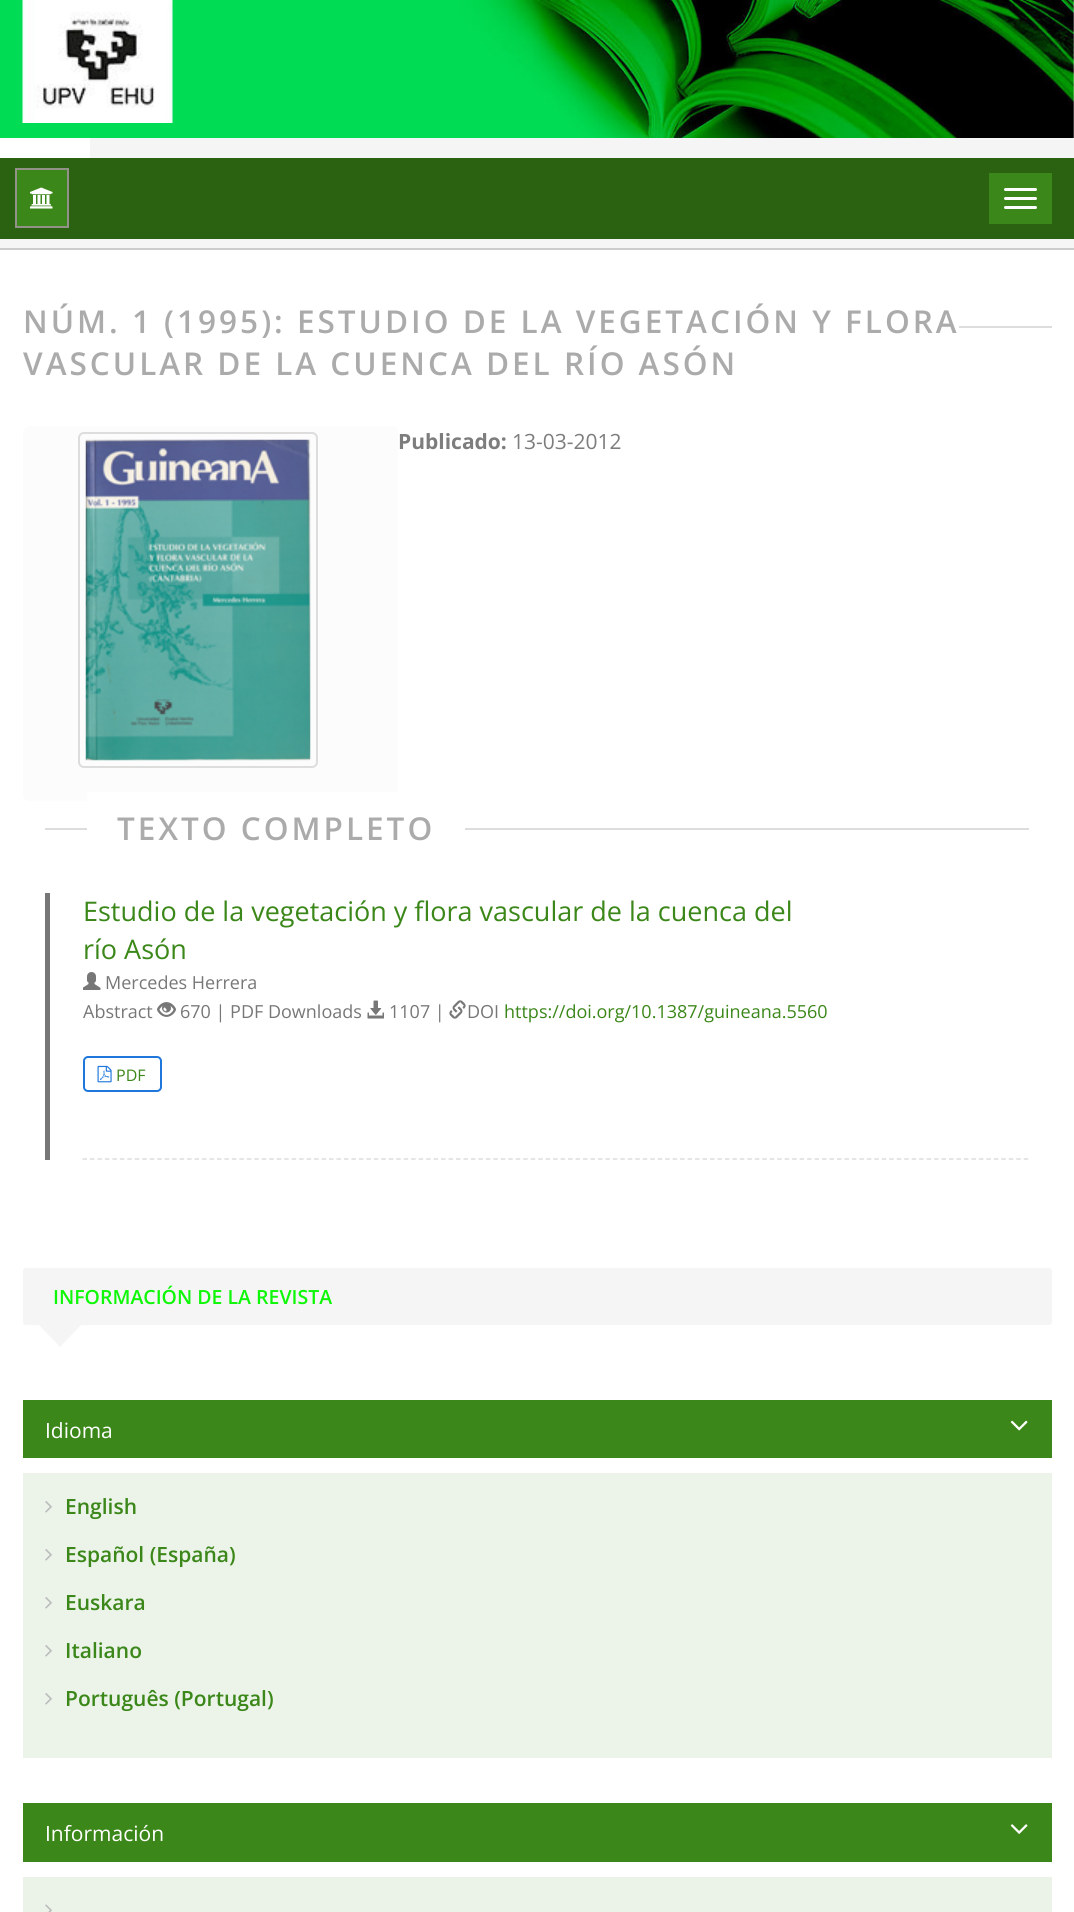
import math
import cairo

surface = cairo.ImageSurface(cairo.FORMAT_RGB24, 1074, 1912)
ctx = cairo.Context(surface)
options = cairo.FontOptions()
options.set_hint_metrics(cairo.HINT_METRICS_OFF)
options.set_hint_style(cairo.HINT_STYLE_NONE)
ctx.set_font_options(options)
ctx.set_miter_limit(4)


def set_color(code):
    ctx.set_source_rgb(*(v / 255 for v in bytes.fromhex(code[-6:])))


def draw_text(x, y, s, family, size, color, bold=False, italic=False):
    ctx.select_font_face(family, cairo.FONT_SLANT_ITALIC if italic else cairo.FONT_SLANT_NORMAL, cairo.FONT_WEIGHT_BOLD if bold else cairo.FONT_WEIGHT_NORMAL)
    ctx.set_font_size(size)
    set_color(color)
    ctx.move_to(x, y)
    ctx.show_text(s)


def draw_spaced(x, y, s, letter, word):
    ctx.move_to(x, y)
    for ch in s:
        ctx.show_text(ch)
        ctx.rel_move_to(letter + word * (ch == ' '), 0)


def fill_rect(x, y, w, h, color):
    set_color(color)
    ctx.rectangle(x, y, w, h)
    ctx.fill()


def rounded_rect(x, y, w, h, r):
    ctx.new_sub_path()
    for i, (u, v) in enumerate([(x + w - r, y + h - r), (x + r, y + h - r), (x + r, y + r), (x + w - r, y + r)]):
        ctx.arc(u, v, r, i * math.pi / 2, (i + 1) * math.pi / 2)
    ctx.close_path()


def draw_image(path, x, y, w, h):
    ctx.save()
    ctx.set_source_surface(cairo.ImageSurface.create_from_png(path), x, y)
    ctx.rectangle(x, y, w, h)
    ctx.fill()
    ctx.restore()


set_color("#ffffff")
ctx.paint()
draw_image("assets/img1.png", 0, 0, 1074, 138)
draw_image("assets/img2.png", 22, 0, 151, 123)
fill_rect(90, 138, 984, 20, "#f5f5f5")
fill_rect(0, 158, 1074, 81, "#2a6211")
set_color("#3b8719")
ctx.rectangle(16, 169, 52, 58)
ctx.fill_preserve()
set_color("#929288")
ctx.stroke()
draw_image("assets/img3.png", 30, 187, 23, 22)
fill_rect(989, 173, 63, 51, "#3b8719")
set_color("#ffffff")
rounded_rect(1004, 188, 33, 3, 1.5)
ctx.fill()
rounded_rect(1004, 197, 33, 3, 1.5)
ctx.fill()
rounded_rect(1004, 206, 33, 3, 1.5)
ctx.fill()
fill_rect(0, 239, 1074, 9, "#f5f5f5")
fill_rect(0, 248, 1074, 2, "#cccccc")
fill_rect(959, 326, 93, 2, "#dddddd")
ctx.select_font_face("Open Sans SemiBold")
ctx.set_font_size(31.5)
set_color("#ababab")
draw_spaced(23, 333, "NÚM. 1 (1995): ESTUDIO DE LA VEGETACIÓN Y FLORA", 3, 0)
draw_spaced(23, 375, "VASCULAR DE LA CUENCA DEL RÍO ASÓN", 3, 0)
set_color("#fcfcfc")
rounded_rect(23, 426, 375, 375, 6)
ctx.fill()
rounded_rect(79, 433, 238, 334, 5)
set_color("#dddddd")
ctx.stroke()
draw_image("assets/img4.png", 85, 439, 226, 322)
draw_text(398, 449, "Publicado:", "Open Sans", 21, "#7d7d7d", bold=True)
draw_text(512, 449, "13-03-2012", "Open Sans", 21, "#7d7d7d")
fill_rect(45, 828, 984, 2, "#dddddd")
set_color("#ffffff")
rounded_rect(87, 792, 378, 72, 3)
ctx.fill()
ctx.select_font_face("Open Sans SemiBold")
ctx.set_font_size(31.5)
set_color("#ababab")
draw_spaced(117, 840, "TEXTO COMPLETO", 3, 0)
fill_rect(45, 893, 5, 267, "#777777")
ctx.new_path()
ctx.move_to(82.5, 1159)
ctx.line_to(1029, 1159)
set_color("#dddddd")
ctx.set_line_width(1.5)
ctx.set_dash([4.5, 2.97])
ctx.stroke()
draw_text(83, 921, "Estudio de la vegetación y flora vascular de la cuenca del", "Open Sans", 27, "#3b8719")
draw_text(83, 959, "río Asón", "Open Sans", 27, "#3b8719")
draw_image("assets/img5.png", 83, 972, 18, 18)
draw_text(105, 989, "Mercedes Herrera", "Open Sans", 18, "#777777")
draw_text(83, 1018, "Abstract", "Open Sans", 18, "#777777")
draw_image("assets/img6.png", 157, 1002, 19, 15)
draw_text(180, 1018, "670 | PDF Downloads", "Open Sans", 18, "#777777")
draw_image("assets/img7.png", 367, 1000, 17, 19)
draw_text(389, 1018, "1107 |", "Open Sans", 18, "#777777")
draw_image("assets/img8.png", 449, 1000, 17, 19)
draw_text(467, 1018, "DOI", "Open Sans", 18, "#777777")
draw_text(504, 1018, "https://doi.org/10.1387/guineana.5560", "Open Sans", 18, "#3b8719")
rounded_rect(84, 1057, 77, 34, 4)
set_color("#2077db")
ctx.set_line_width(2)
ctx.set_dash([])
ctx.stroke()
draw_image("assets/img9.png", 97, 1065, 15, 18)
draw_text(116, 1081, "PDF", "Open Sans", 16, "#3b8719")
set_color("#f5f5f5")
rounded_rect(23, 1268, 1029, 57, 3)
ctx.fill()
draw_text(53, 1304, "INFORMACIÓN DE LA REVISTA", "Open Sans SemiBold", 19.5, "#0df706")
set_color("#f5f5f5")
ctx.new_path()
ctx.move_to(38, 1324)
ctx.line_to(82, 1324)
ctx.line_to(60, 1347)
ctx.close_path()
ctx.fill()
fill_rect(23, 1400, 1029, 58, "#3b8719")
draw_text(45, 1438, "Idioma", "Open Sans", 21, "#ffffff")
draw_image("assets/img10.png", 1010, 1420, 18, 11)
fill_rect(23, 1473, 1029, 285, "#ecf4e9")
draw_image("assets/img11.png", 45, 1501, 7, 12)
draw_text(65, 1514, "English", "Open Sans SemiBold", 21, "#3b8719")
draw_image("assets/img11.png", 45, 1549, 7, 12)
draw_text(65, 1562, "Español (España)", "Open Sans SemiBold", 21, "#3b8719")
draw_image("assets/img11.png", 45, 1597, 7, 12)
draw_text(65, 1610, "Euskara", "Open Sans SemiBold", 21, "#3b8719")
draw_image("assets/img11.png", 45, 1645, 7, 12)
draw_text(65, 1658, "Italiano", "Open Sans SemiBold", 21, "#3b8719")
draw_image("assets/img11.png", 45, 1693, 7, 12)
draw_text(65, 1706, "Português (Portugal)", "Open Sans SemiBold", 21, "#3b8719")
fill_rect(23, 1803, 1029, 59, "#3b8719")
draw_text(45, 1841, "Información", "Open Sans", 21, "#ffffff")
draw_image("assets/img12.png", 1010, 1824, 18, 10)
fill_rect(23, 1877, 1029, 35, "#ebf3e8")
draw_image("assets/img13.png", 45, 1904, 7, 8)
surface.write_to_png("output.png")
